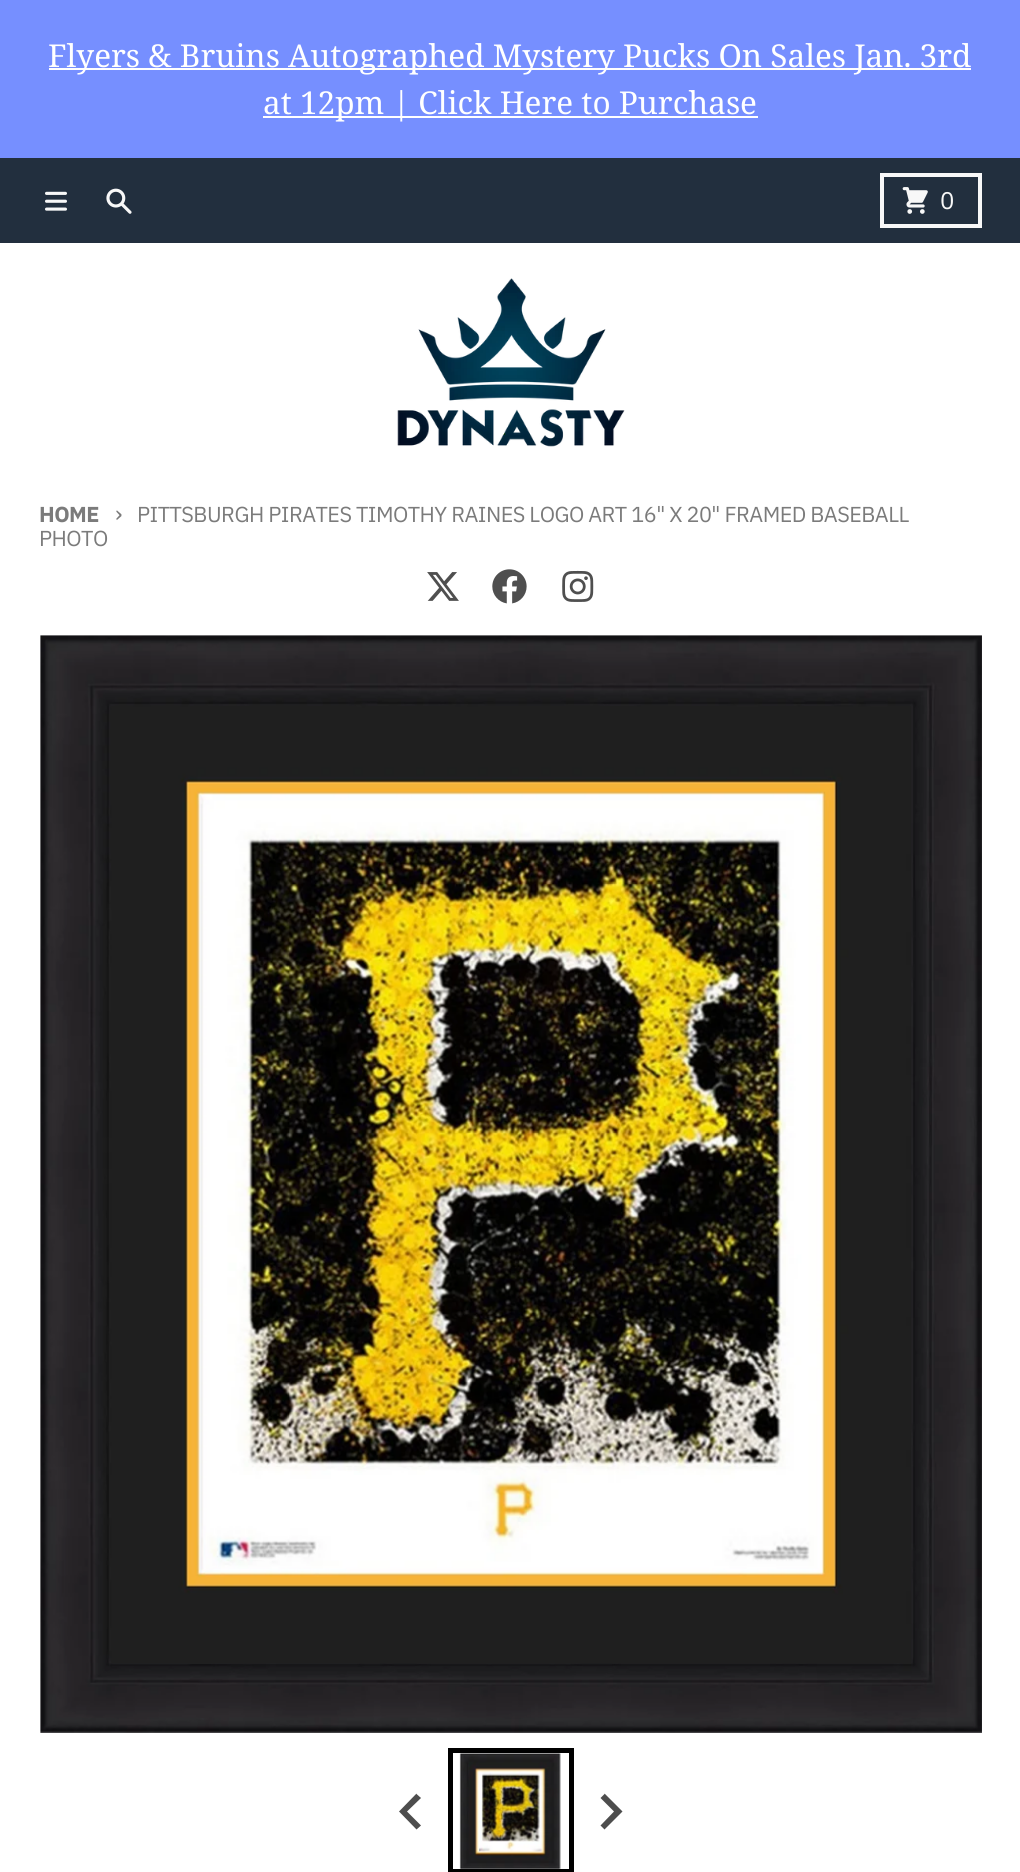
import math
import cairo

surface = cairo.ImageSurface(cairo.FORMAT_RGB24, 1020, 1872)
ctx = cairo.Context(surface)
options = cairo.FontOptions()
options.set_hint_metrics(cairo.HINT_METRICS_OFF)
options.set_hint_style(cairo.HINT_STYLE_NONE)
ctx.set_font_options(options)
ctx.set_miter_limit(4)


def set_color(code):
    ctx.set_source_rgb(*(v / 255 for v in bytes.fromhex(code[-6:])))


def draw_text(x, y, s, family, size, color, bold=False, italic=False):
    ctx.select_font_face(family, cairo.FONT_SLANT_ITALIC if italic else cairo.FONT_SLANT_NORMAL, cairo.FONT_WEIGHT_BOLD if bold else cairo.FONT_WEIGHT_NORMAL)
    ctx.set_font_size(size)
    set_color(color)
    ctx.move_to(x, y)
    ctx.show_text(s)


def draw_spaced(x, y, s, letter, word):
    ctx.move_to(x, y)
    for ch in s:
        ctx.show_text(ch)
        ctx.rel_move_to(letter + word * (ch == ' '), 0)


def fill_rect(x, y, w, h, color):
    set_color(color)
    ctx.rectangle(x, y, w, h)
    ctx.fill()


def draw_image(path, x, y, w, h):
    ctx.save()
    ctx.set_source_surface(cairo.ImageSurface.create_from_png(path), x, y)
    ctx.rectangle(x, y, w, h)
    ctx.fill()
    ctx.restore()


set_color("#222f3e")
ctx.paint()
fill_rect(0, 0, 1020, 158, "#768fff")
fill_rect(49, 68, 922, 2, "#ffffff")
draw_text(48, 67, "Flyers & Bruins Autographed Mystery Pucks On Sales Jan. 3rd", "Noto Serif", 31.5, "#ffffff")
fill_rect(263, 116, 495, 2, "#ffffff")
draw_text(263, 114, "at 12pm | Click Here to Purchase", "Noto Serif", 31.5, "#ffffff")
draw_image("assets/img1.png", 45, 191, 22, 20)
draw_image("assets/img2.png", 106, 188, 26, 26)
ctx.rectangle(882, 175, 98, 51)
set_color("#f8f8f8")
ctx.set_line_width(4)
ctx.stroke()
draw_image("assets/img3.png", 902, 187, 26, 27)
draw_text(940, 209, "0", "IBM Plex Sans", 24, "#f8f8f8")
fill_rect(0, 243, 1020, 1629, "#ffffff")
draw_image("assets/img4.png", 397, 278, 228, 169)
ctx.select_font_face("IBM Plex Sans", cairo.FONT_SLANT_NORMAL, cairo.FONT_WEIGHT_BOLD)
ctx.set_font_size(21.65)
set_color("#7b7b7b")
draw_spaced(39, 522, "HOME", -0.55, 0)
ctx.select_font_face("IBM Plex Sans")
ctx.set_font_size(24)
draw_spaced(115, 522, "›", -0.55, 0)
ctx.set_font_size(21.65)
draw_spaced(137, 522, "PITTSBURGH PIRATES TIMOTHY RAINES LOGO ART 16\" X 20\" FRAMED BASEBALL", -0.55, 0)
draw_spaced(39, 546, "PHOTO", -0.55, 0)
draw_image("assets/img5.png", 427, 572, 32, 29)
draw_image("assets/img6.png", 492, 569, 35, 35)
draw_image("assets/img7.png", 562, 570, 32, 32)
draw_image("assets/img8.png", 40, 635, 942, 1098)
ctx.rectangle(450.5, 1750.5, 121, 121)
set_color("#000000")
ctx.set_line_width(5)
ctx.stroke()
draw_image("assets/img9.png", 459, 1753, 102, 116)
set_color("#4d4d4d")
ctx.new_path()
ctx.move_to(416.5, 1794)
ctx.line_to(421, 1798)
ctx.line_to(407, 1811.5)
ctx.line_to(421, 1825.5)
ctx.line_to(416.5, 1829.5)
ctx.line_to(399, 1811.5)
ctx.line_to(416.5, 1793.5)
ctx.close_path()
ctx.fill()
ctx.new_path()
ctx.move_to(604.5, 1794)
ctx.line_to(600.5, 1798)
ctx.line_to(614, 1811.5)
ctx.line_to(600.5, 1825.5)
ctx.line_to(604.5, 1829.5)
ctx.line_to(622.5, 1811.5)
ctx.line_to(604.5, 1793.5)
ctx.close_path()
ctx.fill()
surface.write_to_png("output.png")
